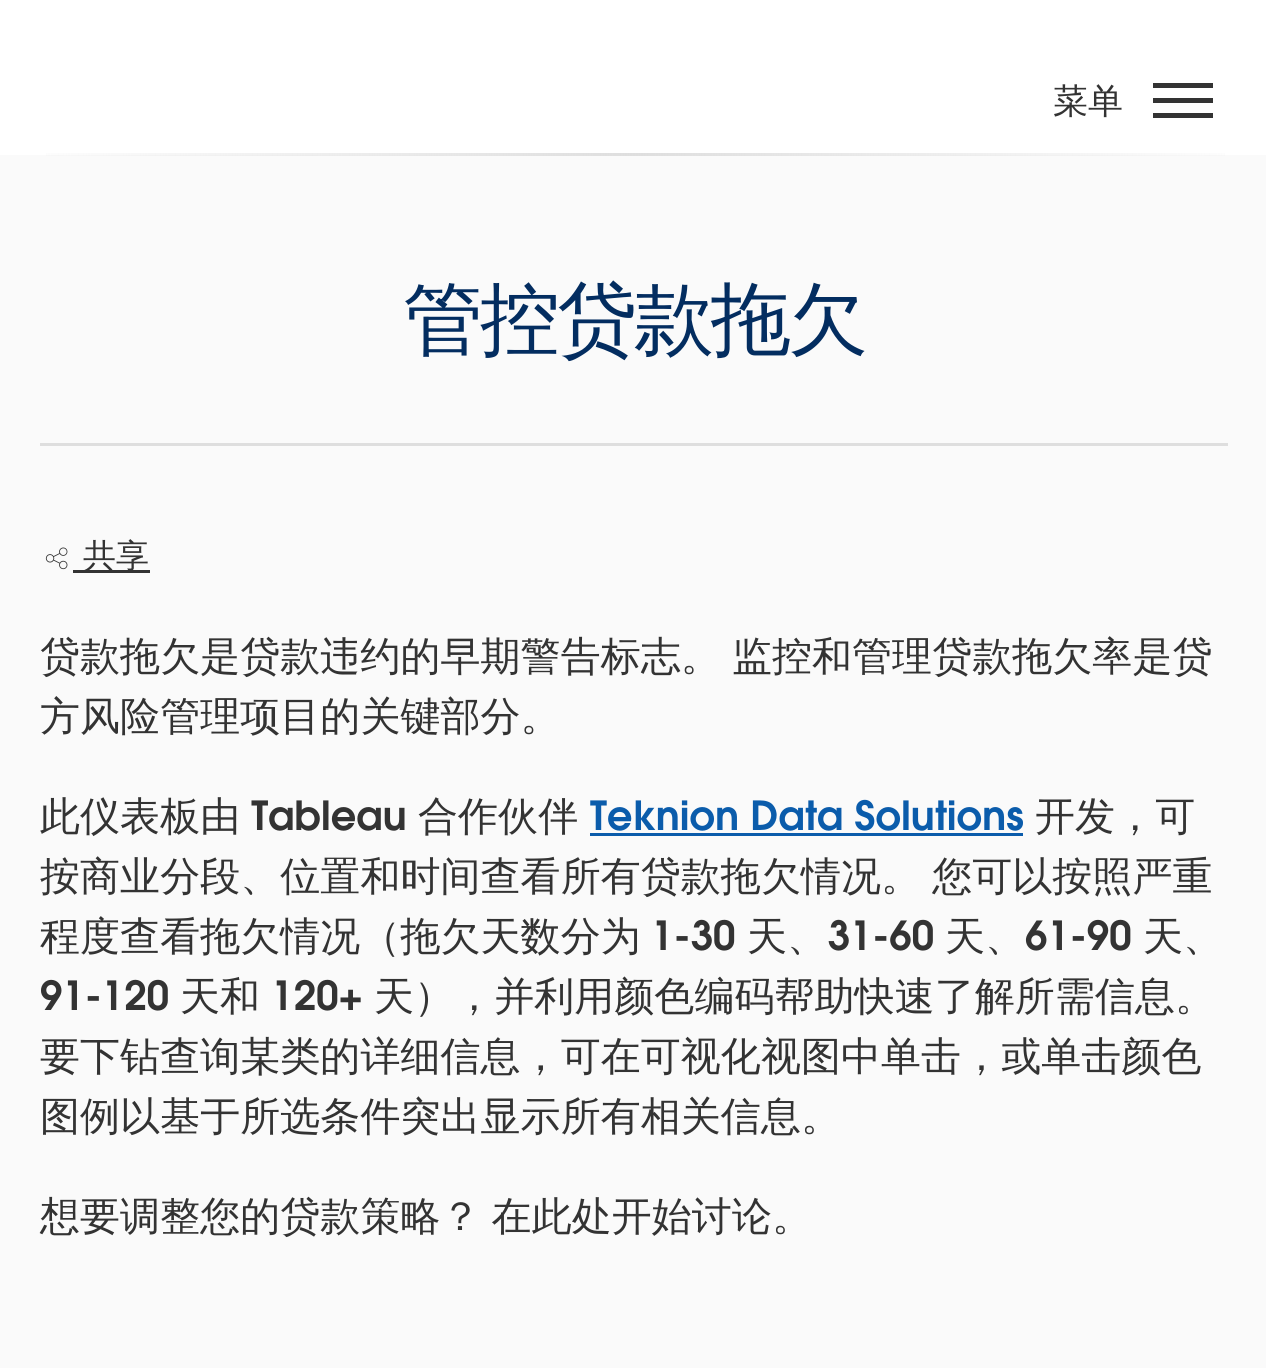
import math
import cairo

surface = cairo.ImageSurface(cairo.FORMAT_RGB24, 1266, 1368)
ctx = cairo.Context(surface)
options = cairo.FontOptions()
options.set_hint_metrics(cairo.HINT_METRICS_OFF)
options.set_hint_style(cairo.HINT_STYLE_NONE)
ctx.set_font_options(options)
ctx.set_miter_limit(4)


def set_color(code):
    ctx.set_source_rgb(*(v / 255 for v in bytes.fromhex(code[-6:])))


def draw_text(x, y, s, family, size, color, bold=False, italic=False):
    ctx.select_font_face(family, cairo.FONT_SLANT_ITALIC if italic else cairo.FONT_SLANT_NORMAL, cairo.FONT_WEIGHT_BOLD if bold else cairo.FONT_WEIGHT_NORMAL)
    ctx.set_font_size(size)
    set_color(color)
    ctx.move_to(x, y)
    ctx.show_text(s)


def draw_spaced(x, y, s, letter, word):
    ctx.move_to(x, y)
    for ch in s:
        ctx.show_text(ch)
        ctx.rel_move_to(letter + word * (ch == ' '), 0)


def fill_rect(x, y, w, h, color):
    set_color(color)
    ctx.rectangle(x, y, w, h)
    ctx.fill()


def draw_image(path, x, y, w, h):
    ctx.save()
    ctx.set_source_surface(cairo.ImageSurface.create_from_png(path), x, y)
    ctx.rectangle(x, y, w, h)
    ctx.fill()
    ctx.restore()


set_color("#ffffff")
ctx.paint()
draw_text(1053, 113, "菜单", "WenQuanYi Zen Hei Medium", 35, "#333333")
fill_rect(1153, 98, 60, 5, "#333333")
fill_rect(1153, 83, 60, 5, "#333333")
fill_rect(1153, 113, 60, 5, "#333333")
fill_rect(0, 155, 1266, 1213, "#fafafa")
gradient = cairo.LinearGradient(0, 154, 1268, 154)
gradient.add_color_stop_rgba(0, 0.871, 0.871, 0.871, 0)
gradient.add_color_stop_rgba(0.5, 0.871, 0.871, 0.871, 1)
gradient.add_color_stop_rgba(1, 0.871, 0.871, 0.871, 0)
ctx.set_source(gradient)
ctx.rectangle(46, 153, 1179, 3)
ctx.fill()
ctx.set_font_size(80)
set_color("#032d60")
draw_spaced(403, 347, "管控贷款拖欠", -3, 0)
fill_rect(40, 443, 1188, 3, "#dedede")
draw_image("assets/img1.png", 45, 547, 23, 23)
fill_rect(73, 570, 77, 3, "#333333")
draw_text(83, 567, "共享", "WenQuanYi Zen Hei Medium", 33, "#333333")
ctx.set_font_size(40)
draw_spaced(40, 670, "贷款拖欠是贷款违约的早期警告标志。 监控和管理贷款拖欠率是贷", 0.05, -1)
draw_spaced(40, 730, "方风险管理项目的关键部分。", 0.05, 0)
draw_spaced(40, 830, "此仪表板由", 0.05, 0)
draw_image("assets/img2.png", 251, 800, 154, 31)
draw_spaced(418, 830, "合作伙伴", 0.05, 0)
draw_image("assets/img3.png", 590, 799, 433, 32)
draw_spaced(1035, 830, "开发，可", 0.05, 0)
fill_rect(590, 833, 433, 3, "#0b5cab")
set_color("#333333")
draw_spaced(40, 890, "按商业分段、位置和时间查看所有贷款拖欠情况。 您可以按照严重", 0.05, -1)
draw_spaced(40, 950, "程度查看拖欠情况（拖欠天数分为", 0.05, 0)
draw_image("assets/img4.png", 656, 919, 79, 32)
draw_spaced(747, 950, "天、", 0.05, 0)
draw_image("assets/img5.png", 828, 919, 105, 32)
draw_spaced(945, 950, "天、", 0.05, 0)
draw_image("assets/img6.png", 1025, 919, 106, 32)
draw_spaced(1143, 950, "天、", 0.05, 0)
draw_image("assets/img7.png", 41, 979, 127, 32)
draw_spaced(180, 1010, "天和", 0.05, 0)
draw_image("assets/img8.png", 276, 979, 85, 32)
draw_spaced(374, 1010, "天），并利用颜色编码帮助快速了解所需信息。", 0.05, 0)
draw_spaced(40, 1070, "要下钻查询某类的详细信息，可在可视化视图中单击，或单击颜色", 0.05, 0)
draw_spaced(40, 1130, "图例以基于所选条件突出显示所有相关信息。", 0.05, 0)
draw_spaced(40, 1230, "想要调整您的贷款策略？ 在此处开始讨论。", 0.05, -1)
surface.write_to_png("output.png")
